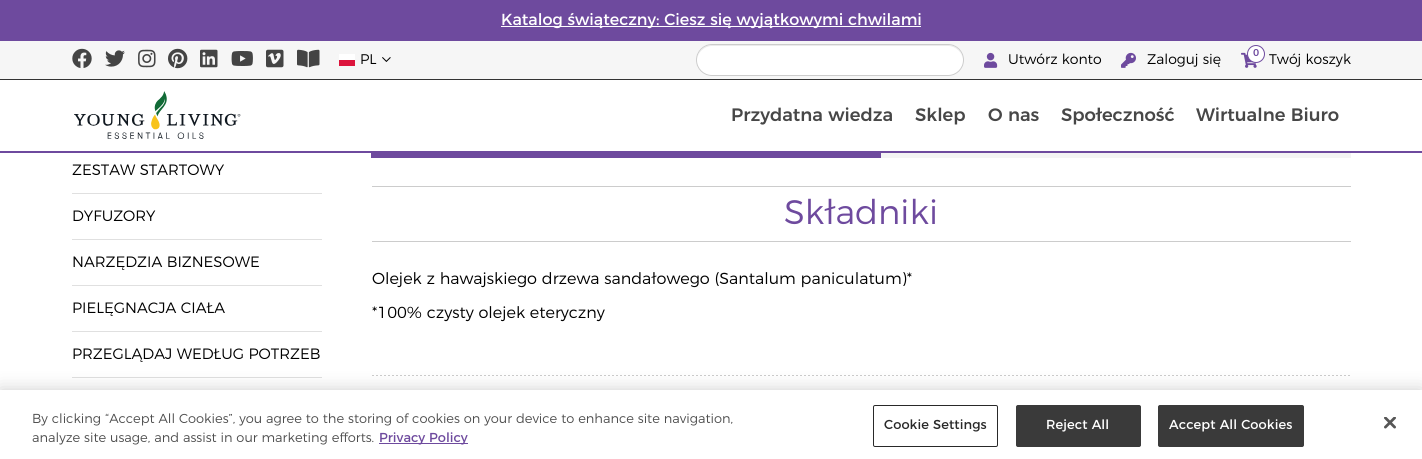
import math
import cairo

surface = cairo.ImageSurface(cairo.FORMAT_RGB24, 1422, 459)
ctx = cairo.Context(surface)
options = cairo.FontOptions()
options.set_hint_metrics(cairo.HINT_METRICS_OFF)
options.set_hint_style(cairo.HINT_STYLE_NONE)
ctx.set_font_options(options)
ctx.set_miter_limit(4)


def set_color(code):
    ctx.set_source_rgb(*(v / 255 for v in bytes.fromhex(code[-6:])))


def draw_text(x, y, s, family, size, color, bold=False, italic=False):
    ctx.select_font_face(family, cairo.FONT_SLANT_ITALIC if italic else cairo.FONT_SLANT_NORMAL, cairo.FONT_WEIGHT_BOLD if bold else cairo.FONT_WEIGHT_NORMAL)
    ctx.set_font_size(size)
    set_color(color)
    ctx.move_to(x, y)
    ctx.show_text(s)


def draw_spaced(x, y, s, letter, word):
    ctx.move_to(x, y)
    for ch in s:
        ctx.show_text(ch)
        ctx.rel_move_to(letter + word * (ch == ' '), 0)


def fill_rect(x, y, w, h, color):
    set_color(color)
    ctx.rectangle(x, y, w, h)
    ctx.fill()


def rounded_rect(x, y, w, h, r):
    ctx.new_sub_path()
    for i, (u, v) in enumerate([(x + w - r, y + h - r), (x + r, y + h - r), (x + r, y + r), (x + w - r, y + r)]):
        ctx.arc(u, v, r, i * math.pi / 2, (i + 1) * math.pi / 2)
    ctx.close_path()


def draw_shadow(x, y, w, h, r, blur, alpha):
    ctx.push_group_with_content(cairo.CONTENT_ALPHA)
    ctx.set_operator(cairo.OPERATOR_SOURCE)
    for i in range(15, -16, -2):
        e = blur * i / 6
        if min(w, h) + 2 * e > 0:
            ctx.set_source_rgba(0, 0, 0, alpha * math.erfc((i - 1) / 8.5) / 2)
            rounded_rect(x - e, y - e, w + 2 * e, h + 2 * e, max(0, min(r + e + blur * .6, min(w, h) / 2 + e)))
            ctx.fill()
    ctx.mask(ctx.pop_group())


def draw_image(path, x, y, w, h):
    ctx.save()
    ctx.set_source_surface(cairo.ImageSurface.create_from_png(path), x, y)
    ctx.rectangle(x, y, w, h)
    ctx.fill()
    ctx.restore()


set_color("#ffffff")
ctx.paint()
fill_rect(0, 151, 1422, 2, "#6e4a9e")
fill_rect(0, 0, 1422, 41, "#6e4a9e")
fill_rect(501, 26, 420, 1, "#ffffff")
draw_text(501, 25, "Katalog świąteczny: Ciesz się wyjątkowymi chwilami", "Montserrat", 16, "#ffffff")
fill_rect(0, 41, 1422, 38, "#f6f6f6")
fill_rect(0, 79, 1422, 1, "#333333")
draw_image("assets/img1.png", 72, 48, 20, 20)
draw_image("assets/img2.png", 105, 50, 20, 17)
draw_image("assets/img3.png", 138, 49, 18, 19)
draw_image("assets/img4.png", 168, 48, 20, 21)
draw_image("assets/img5.png", 200, 49, 18, 19)
draw_image("assets/img6.png", 231, 51, 22, 15)
draw_image("assets/img7.png", 266, 49, 18, 19)
draw_image("assets/img8.png", 297, 49, 23, 19)
fill_rect(339, 54, 16, 6, "#ffffff")
fill_rect(339, 60, 16, 6, "#dc143c")
draw_text(360, 64, "PL", "Montserrat Light", 14, "#000000")
draw_image("assets/img9.png", 382, 57, 9, 5)
set_color("#ffffff")
rounded_rect(696, 44, 268, 32, 16)
ctx.fill()
set_color("#ebebeb")
ctx.new_path()
ctx.move_to(712, 46)
ctx.line_to(948, 46)
ctx.curve_to(956, 46, 963, 53, 963, 61)
ctx.curve_to(963, 52, 956, 45, 948, 45)
ctx.line_to(712, 45)
ctx.curve_to(704, 45, 697, 52, 697, 61)
ctx.curve_to(697, 53, 704, 46, 712, 46)
ctx.close_path()
ctx.fill()
rounded_rect(696.5, 44.5, 267, 31, 15.5)
set_color("#cccccc")
ctx.set_line_width(1)
ctx.stroke()
draw_image("assets/img10.png", 984, 52, 14, 16)
draw_text(1008, 64, "Utwórz konto", "Montserrat Light", 14, "#000000")
draw_image("assets/img11.png", 1121, 52, 15, 16)
draw_text(1147, 64, "Zaloguj się", "Montserrat Light", 14, "#000000")
draw_image("assets/img12.png", 1241, 52, 16, 16)
set_color("#ffffff")
ctx.arc(1256, 54, 8.5, 0, 2 * math.pi)
ctx.fill_preserve()
set_color("#6e4a9e")
ctx.stroke()
draw_text(1253, 56, "0", "Montserrat Medium", 10, "#6e4a9e")
draw_text(1269, 64, "Twój koszyk", "Montserrat Light", 14, "#000000")
draw_image("assets/img13.png", 74, 91, 167, 48)
draw_text(731, 121, "Przydatna wiedza", "Montserrat Medium", 18, "#474747")
draw_text(915, 121, "Sklep", "Montserrat Medium", 18, "#474747")
draw_text(988, 121, "O nas", "Montserrat Medium", 18, "#474747")
draw_text(1061, 121, "Społeczność", "Montserrat Medium", 18, "#474747")
draw_text(1196, 121, "Wirtualne Biuro", "Montserrat Medium", 18, "#474747")
fill_rect(72, 193, 250, 1, "#e0e0e0")
draw_text(72, 175, "ZESTAW STARTOWY", "Montserrat Light", 15, "#000000")
fill_rect(72, 239, 250, 1, "#e0e0e0")
draw_text(72, 221, "DYFUZORY", "Montserrat Light", 15, "#000000")
fill_rect(72, 285, 250, 1, "#e0e0e0")
draw_text(72, 267, "NARZĘDZIA BIZNESOWE", "Montserrat Light", 15, "#000000")
fill_rect(72, 331, 250, 1, "#e0e0e0")
draw_text(72, 313, "PIELĘGNACJA CIAŁA", "Montserrat Light", 15, "#000000")
fill_rect(72, 377, 250, 1, "#e0e0e0")
draw_text(72, 359, "PRZEGLĄDAJ WEDŁUG POTRZEB", "Montserrat Light", 15, "#000000")
fill_rect(371, 153, 510, 5, "#6e4a9e")
fill_rect(881, 153, 470, 5, "#f4f4f4")
fill_rect(372, 186, 979, 1, "#cccccc")
fill_rect(372, 241, 979, 1, "#cccccc")
draw_text(784, 224, "Składniki", "Montserrat Light", 34, "#6e4a9e")
draw_text(372, 284, "Olejek z hawajskiego drzewa sandałowego (Santalum paniculatum)*", "Montserrat Light", 16, "#000000")
draw_text(372, 318, "*100% czysty olejek eteryczny", "Montserrat Light", 16, "#000000")
draw_image("assets/img14.png", 372, 375, 978, 1)
set_color("#000000")
draw_shadow(0, 390, 1422, 69, 0, 9, 0.2)
fill_rect(0, 390, 1422, 69, "#ffffff")
draw_text(32, 423, "By clicking “Accept All Cookies”, you agree to the storing of cookies on your device to enhance site navigation,", "Montserrat Light", 13, "#4d4d4d")
draw_text(32, 442, "analyze site usage, and assist in our marketing efforts.", "Montserrat Light", 13, "#4d4d4d")
fill_rect(379, 443, 89, 1, "#6e4a9e")
draw_text(379, 442, "Privacy Policy", "Montserrat", 13, "#6e4a9e")
rounded_rect(873.5, 405.5, 124, 41, 1.5)
set_color("#292929")
ctx.stroke()
draw_spaced(884, 429, "Cookie Settings", 0.1, 0)
set_color("#3a3a3a")
rounded_rect(1016.5, 405.5, 124, 41, 1.5)
ctx.fill_preserve()
ctx.stroke()
set_color("#ffffff")
draw_spaced(1046, 429, "Reject All", 0.1, 0)
set_color("#3a3a3a")
rounded_rect(1158.5, 405.5, 145, 41, 1.5)
ctx.fill_preserve()
ctx.stroke()
set_color("#ffffff")
draw_spaced(1169, 429, "Accept All Cookies", 0.1, 0)
draw_image("assets/img15.png", 1384, 417, 12, 12)
surface.write_to_png("output.png")
